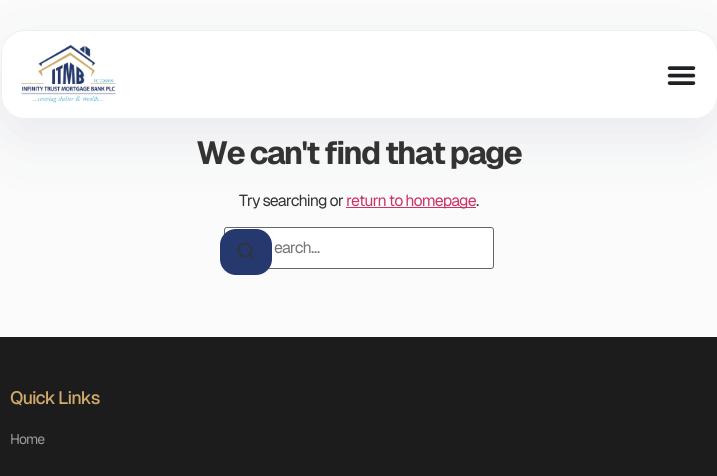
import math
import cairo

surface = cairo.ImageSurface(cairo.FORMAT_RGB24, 717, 476)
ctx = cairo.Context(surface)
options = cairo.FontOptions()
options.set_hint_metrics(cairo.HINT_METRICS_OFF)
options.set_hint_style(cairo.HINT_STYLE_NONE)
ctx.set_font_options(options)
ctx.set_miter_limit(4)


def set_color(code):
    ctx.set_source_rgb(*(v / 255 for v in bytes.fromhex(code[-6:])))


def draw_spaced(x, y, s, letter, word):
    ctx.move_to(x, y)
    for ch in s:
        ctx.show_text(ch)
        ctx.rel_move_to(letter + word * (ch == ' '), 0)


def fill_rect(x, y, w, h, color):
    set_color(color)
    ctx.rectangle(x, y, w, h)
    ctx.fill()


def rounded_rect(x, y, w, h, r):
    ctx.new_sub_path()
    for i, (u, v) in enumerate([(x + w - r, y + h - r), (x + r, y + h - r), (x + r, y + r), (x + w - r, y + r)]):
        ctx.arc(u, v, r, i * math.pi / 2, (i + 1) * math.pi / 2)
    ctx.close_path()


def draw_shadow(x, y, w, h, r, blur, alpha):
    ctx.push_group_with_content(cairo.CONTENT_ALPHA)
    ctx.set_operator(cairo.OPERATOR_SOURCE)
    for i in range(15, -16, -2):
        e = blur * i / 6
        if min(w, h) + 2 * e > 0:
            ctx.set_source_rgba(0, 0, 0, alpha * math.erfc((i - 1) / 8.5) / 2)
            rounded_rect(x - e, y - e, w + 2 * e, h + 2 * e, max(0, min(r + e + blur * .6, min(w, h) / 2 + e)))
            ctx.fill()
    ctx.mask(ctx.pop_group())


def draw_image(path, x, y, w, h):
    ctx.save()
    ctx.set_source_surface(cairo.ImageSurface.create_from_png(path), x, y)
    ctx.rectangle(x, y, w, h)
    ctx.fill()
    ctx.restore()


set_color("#fbfbfb")
ctx.paint()
fill_rect(346, 207, 130, 1, "#cc3366")
set_color("#ffffff")
rounded_rect(224.5, 227.5, 269, 41, 2.5)
ctx.fill_preserve()
set_color("#666666")
ctx.set_line_width(1)
ctx.stroke()
ctx.save()
ctx.set_fill_rule(cairo.FILL_RULE_EVEN_ODD)
ctx.new_path()
ctx.move_to(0, 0)
ctx.line_to(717, 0)
ctx.line_to(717, 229)
ctx.line_to(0, 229)
ctx.close_path()
ctx.move_to(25, 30)
ctx.line_to(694, 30)
ctx.curve_to(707.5, 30, 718, 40.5, 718, 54)
ctx.line_to(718, 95)
ctx.curve_to(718, 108.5, 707.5, 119, 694, 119)
ctx.line_to(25, 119)
ctx.curve_to(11.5, 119, 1, 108.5, 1, 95)
ctx.line_to(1, 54)
ctx.curve_to(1, 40.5, 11.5, 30, 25, 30)
ctx.close_path()
ctx.clip()
set_color("#25396e")
draw_shadow(1, 50, 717, 89, 24, 29.5, 0.09)
ctx.restore()
set_color("#ffffff")
rounded_rect(1.5, 30.5, 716, 88, 23.5)
ctx.fill_preserve()
set_color("#efefef")
ctx.stroke()
draw_image("assets/img1.png", 21, 45, 95, 58)
draw_image("assets/img2.png", 667, 66, 29, 19)
ctx.select_font_face("Geist", cairo.FONT_SLANT_NORMAL, cairo.FONT_WEIGHT_BOLD)
ctx.set_font_size(32)
set_color("#333333")
draw_spaced(196, 164, "We can't find that page", -1.9, 0)
ctx.select_font_face("Geist")
ctx.set_font_size(16)
draw_spaced(239, 206, "Try searching or", -1, 0)
set_color("#cc3366")
draw_spaced(346, 206, "return to homepage", -1, 0)
set_color("#333333")
draw_spaced(476, 206, ".", -1, 0)
set_color("#25396e")
rounded_rect(220, 229, 52, 46, 16)
ctx.fill()
ctx.arc(245, 250, 6.5, 0, 2 * math.pi)
set_color("#333333")
ctx.set_line_width(1.7)
ctx.stroke()
ctx.new_path()
ctx.move_to(253.5, 258.5)
ctx.line_to(250, 255)
ctx.set_line_cap(cairo.LINE_CAP_ROUND)
ctx.set_line_join(cairo.LINE_JOIN_ROUND)
ctx.stroke()
set_color("#757575")
draw_spaced(274, 253, "earch…", -1, 0)
fill_rect(0, 337, 717, 139, "#1c1c1c")
ctx.select_font_face("Geist Medium")
ctx.set_font_size(18)
set_color("#d1a96a")
draw_spaced(10, 404, "Quick Links", -1, 0)
ctx.select_font_face("Geist")
ctx.set_font_size(14)
set_color("#9b9b9b")
draw_spaced(10, 444, "Home", -1, 0)
surface.write_to_png("output.png")
